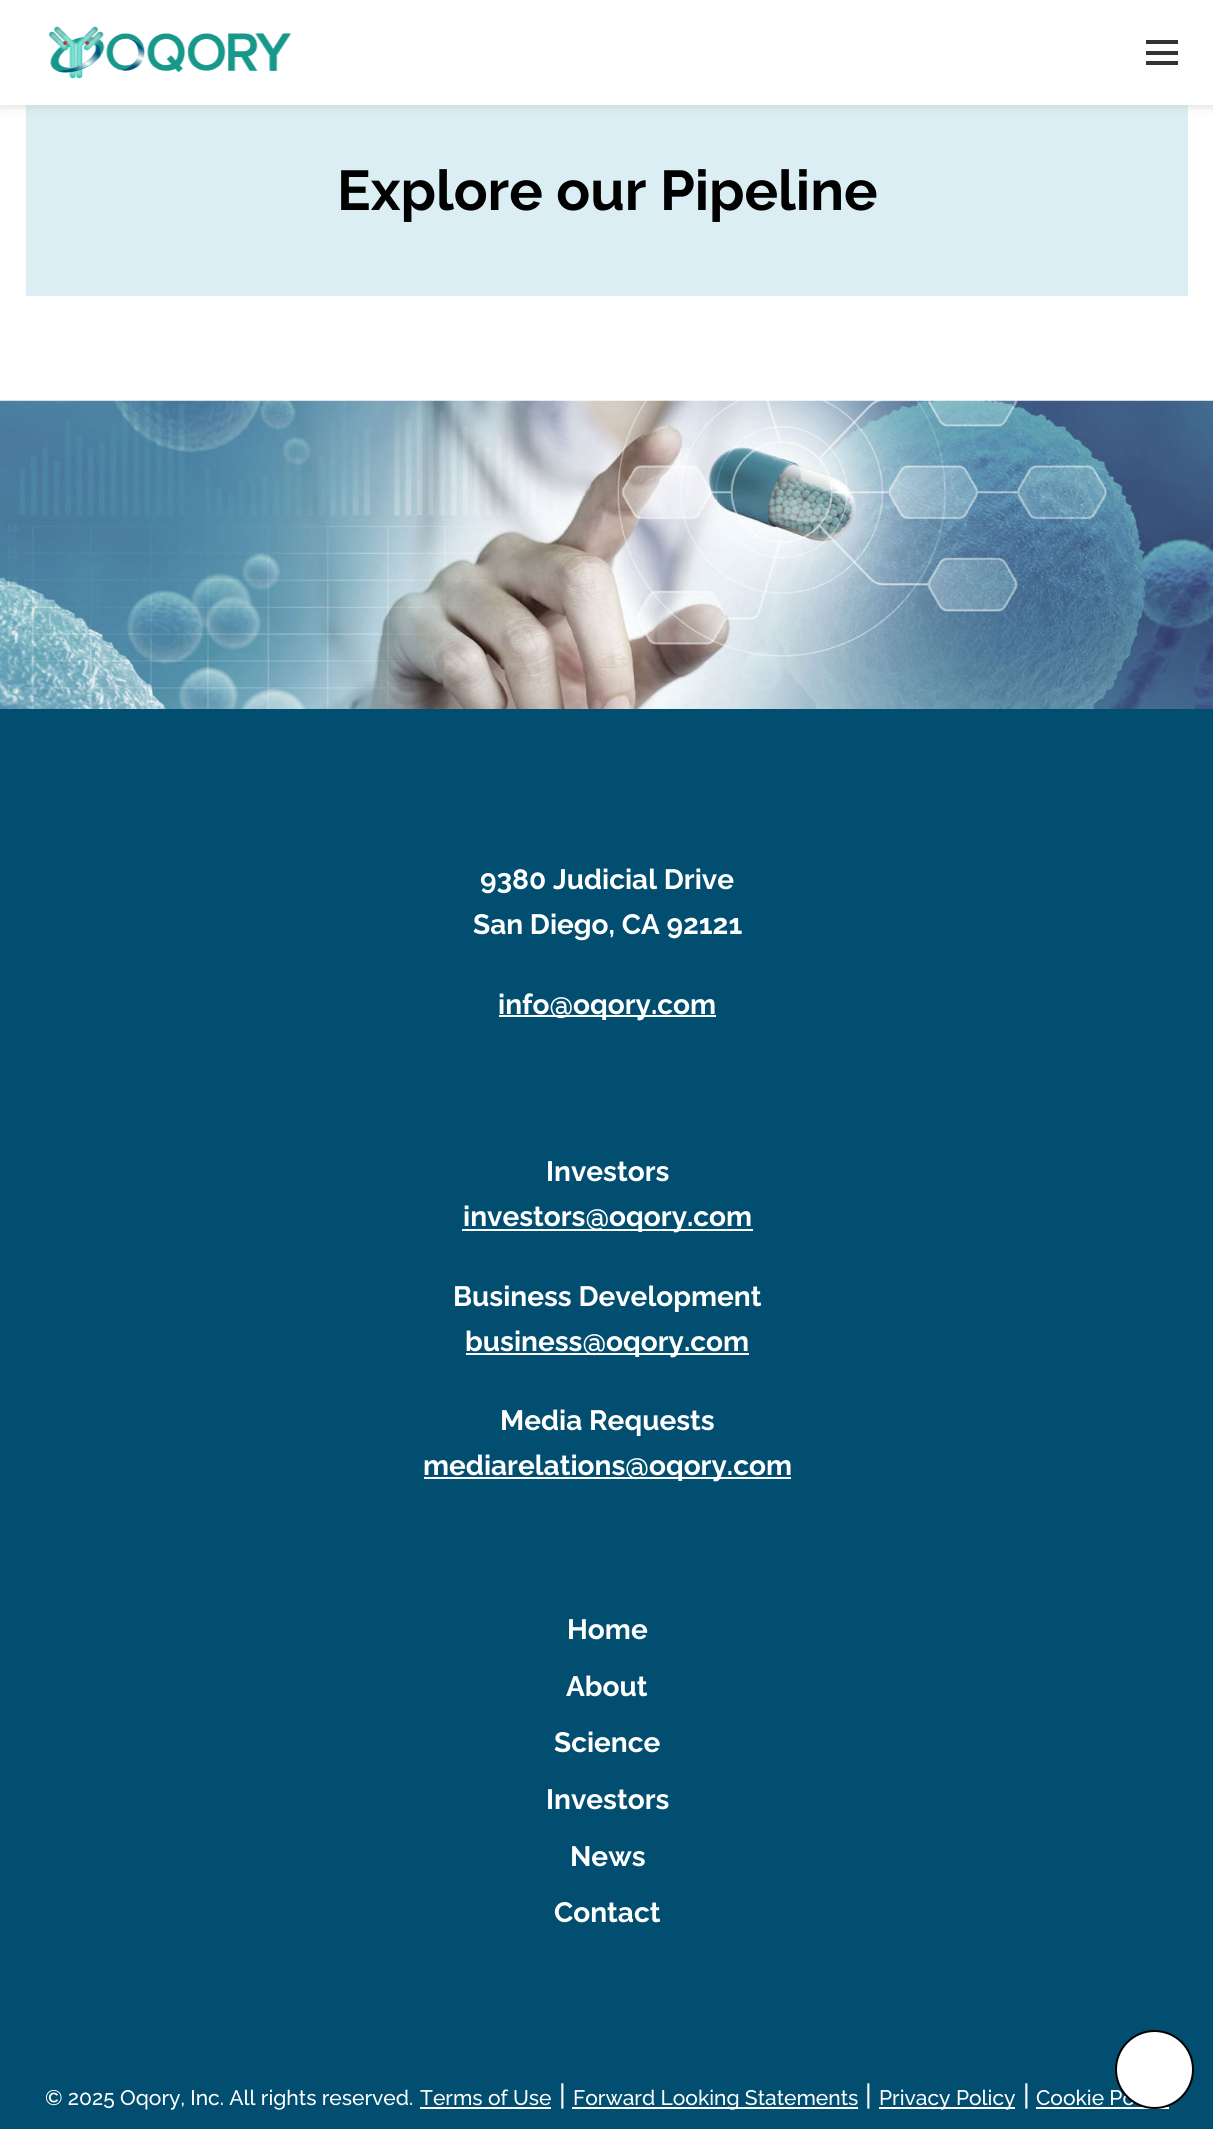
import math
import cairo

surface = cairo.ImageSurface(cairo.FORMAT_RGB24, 1213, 2129)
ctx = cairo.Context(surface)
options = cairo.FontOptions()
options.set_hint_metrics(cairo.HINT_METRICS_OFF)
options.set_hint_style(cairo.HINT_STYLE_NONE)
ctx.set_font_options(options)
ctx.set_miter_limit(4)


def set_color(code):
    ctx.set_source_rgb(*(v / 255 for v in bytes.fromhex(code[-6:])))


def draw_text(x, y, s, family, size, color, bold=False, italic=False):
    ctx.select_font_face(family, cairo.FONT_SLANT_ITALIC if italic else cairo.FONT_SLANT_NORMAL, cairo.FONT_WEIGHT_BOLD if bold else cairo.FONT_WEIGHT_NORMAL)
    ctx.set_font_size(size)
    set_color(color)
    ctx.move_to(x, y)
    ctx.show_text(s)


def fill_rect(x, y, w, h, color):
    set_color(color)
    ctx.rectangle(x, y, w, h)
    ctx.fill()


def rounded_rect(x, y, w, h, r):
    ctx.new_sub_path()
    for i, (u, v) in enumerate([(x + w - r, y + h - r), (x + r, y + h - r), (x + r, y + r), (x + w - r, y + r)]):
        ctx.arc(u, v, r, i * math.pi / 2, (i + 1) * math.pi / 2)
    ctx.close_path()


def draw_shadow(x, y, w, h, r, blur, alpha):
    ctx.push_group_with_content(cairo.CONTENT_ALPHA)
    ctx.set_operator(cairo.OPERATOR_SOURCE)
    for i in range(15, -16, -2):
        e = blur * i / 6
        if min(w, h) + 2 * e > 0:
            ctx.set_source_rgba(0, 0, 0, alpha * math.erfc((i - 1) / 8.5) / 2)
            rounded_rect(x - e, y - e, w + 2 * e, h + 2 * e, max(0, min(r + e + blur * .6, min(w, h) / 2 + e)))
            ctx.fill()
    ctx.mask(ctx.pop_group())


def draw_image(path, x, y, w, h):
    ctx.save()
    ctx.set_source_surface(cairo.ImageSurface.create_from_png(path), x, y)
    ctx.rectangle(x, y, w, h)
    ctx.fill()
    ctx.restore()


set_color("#ffffff")
ctx.paint()
fill_rect(26, 105, 1162, 191, "#dbeef4")
set_color("#bebebe")
draw_shadow(0, 2, 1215, 105, 0, 4.5, 0.5)
fill_rect(0, 0, 1213, 105, "#ffffff")
draw_image("assets/img1.png", 48, 26, 244, 53)
fill_rect(1146, 51, 32, 4, "#333333")
fill_rect(1146, 40, 32, 4, "#333333")
fill_rect(1146, 61, 32, 4, "#333333")
draw_text(337, 210, "Explore our Pipeline", "Raleway", 56, "#000000", bold=True)
draw_image("assets/img2.png", 0, 400, 1213, 309)
fill_rect(0, 709, 1213, 1420, "#024e70")
draw_text(480, 889, "9380 Judicial Drive", "Raleway", 28, "#ffffff", bold=True)
draw_text(473, 934, "San Diego, CA 92121", "Raleway", 28, "#ffffff", bold=True)
fill_rect(499, 1015, 217, 2, "#ffffff")
draw_text(498, 1014, "info@oqory.com", "Raleway", 28, "#ffffff", bold=True)
draw_text(546, 1181, "Investors", "Raleway", 28, "#ffffff", bold=True)
fill_rect(462, 1229, 291, 2, "#ffffff")
draw_text(463, 1226, "investors@oqory.com", "Raleway", 28, "#ffffff", bold=True)
draw_text(453, 1306, "Business Development", "Raleway", 28, "#ffffff", bold=True)
fill_rect(466, 1353, 283, 2, "#ffffff")
draw_text(465, 1351, "business@oqory.com", "Raleway", 28, "#ffffff", bold=True)
draw_text(500, 1430, "Media Requests", "Raleway", 28, "#ffffff", bold=True)
fill_rect(424, 1477, 367, 2, "#ffffff")
draw_text(423, 1475, "mediarelations@oqory.com", "Raleway", 28, "#ffffff", bold=True)
draw_text(567, 1639, "Home", "Raleway", 28, "#ffffff", bold=True)
draw_text(566, 1696, "About", "Raleway", 28, "#ffffff", bold=True)
draw_text(554, 1752, "Science", "Raleway", 28, "#ffffff", bold=True)
draw_text(546, 1809, "Investors", "Raleway", 28, "#ffffff", bold=True)
draw_text(570, 1866, "News", "Raleway", 28, "#ffffff", bold=True)
draw_text(554, 1922, "Contact", "Raleway", 28, "#ffffff", bold=True)
draw_text(45, 2105, "© 2025 Oqory, Inc. All rights reserved.", "Raleway Medium", 21, "#ffffff")
draw_text(420, 2105, "Terms of Use", "Raleway Medium", 21, "#ffffff")
fill_rect(420, 2107, 131, 2, "#ffffff")
draw_text(559, 2105, "|", "Raleway Medium", 28, "#ffffff")
fill_rect(572, 2107, 286, 2, "#ffffff")
draw_text(573, 2105, "Forward Looking Statements", "Raleway Medium", 21, "#ffffff")
draw_text(865, 2105, "|", "Raleway Medium", 28, "#ffffff")
fill_rect(879, 2107, 136, 2, "#ffffff")
draw_text(879, 2105, "Privacy Policy", "Raleway Medium", 21, "#ffffff")
draw_text(1023, 2105, "|", "Raleway Medium", 28, "#ffffff")
draw_text(1036, 2105, "Cookie Po", "Raleway Medium", 21, "#ffffff")
fill_rect(1036, 2107, 133, 2, "#ffffff")
ctx.new_path()
ctx.arc(1154.5, 2069.5, 38.5, 0, 2 * math.pi)
ctx.fill_preserve()
set_color("#000000")
ctx.stroke()
surface.write_to_png("output.png")
